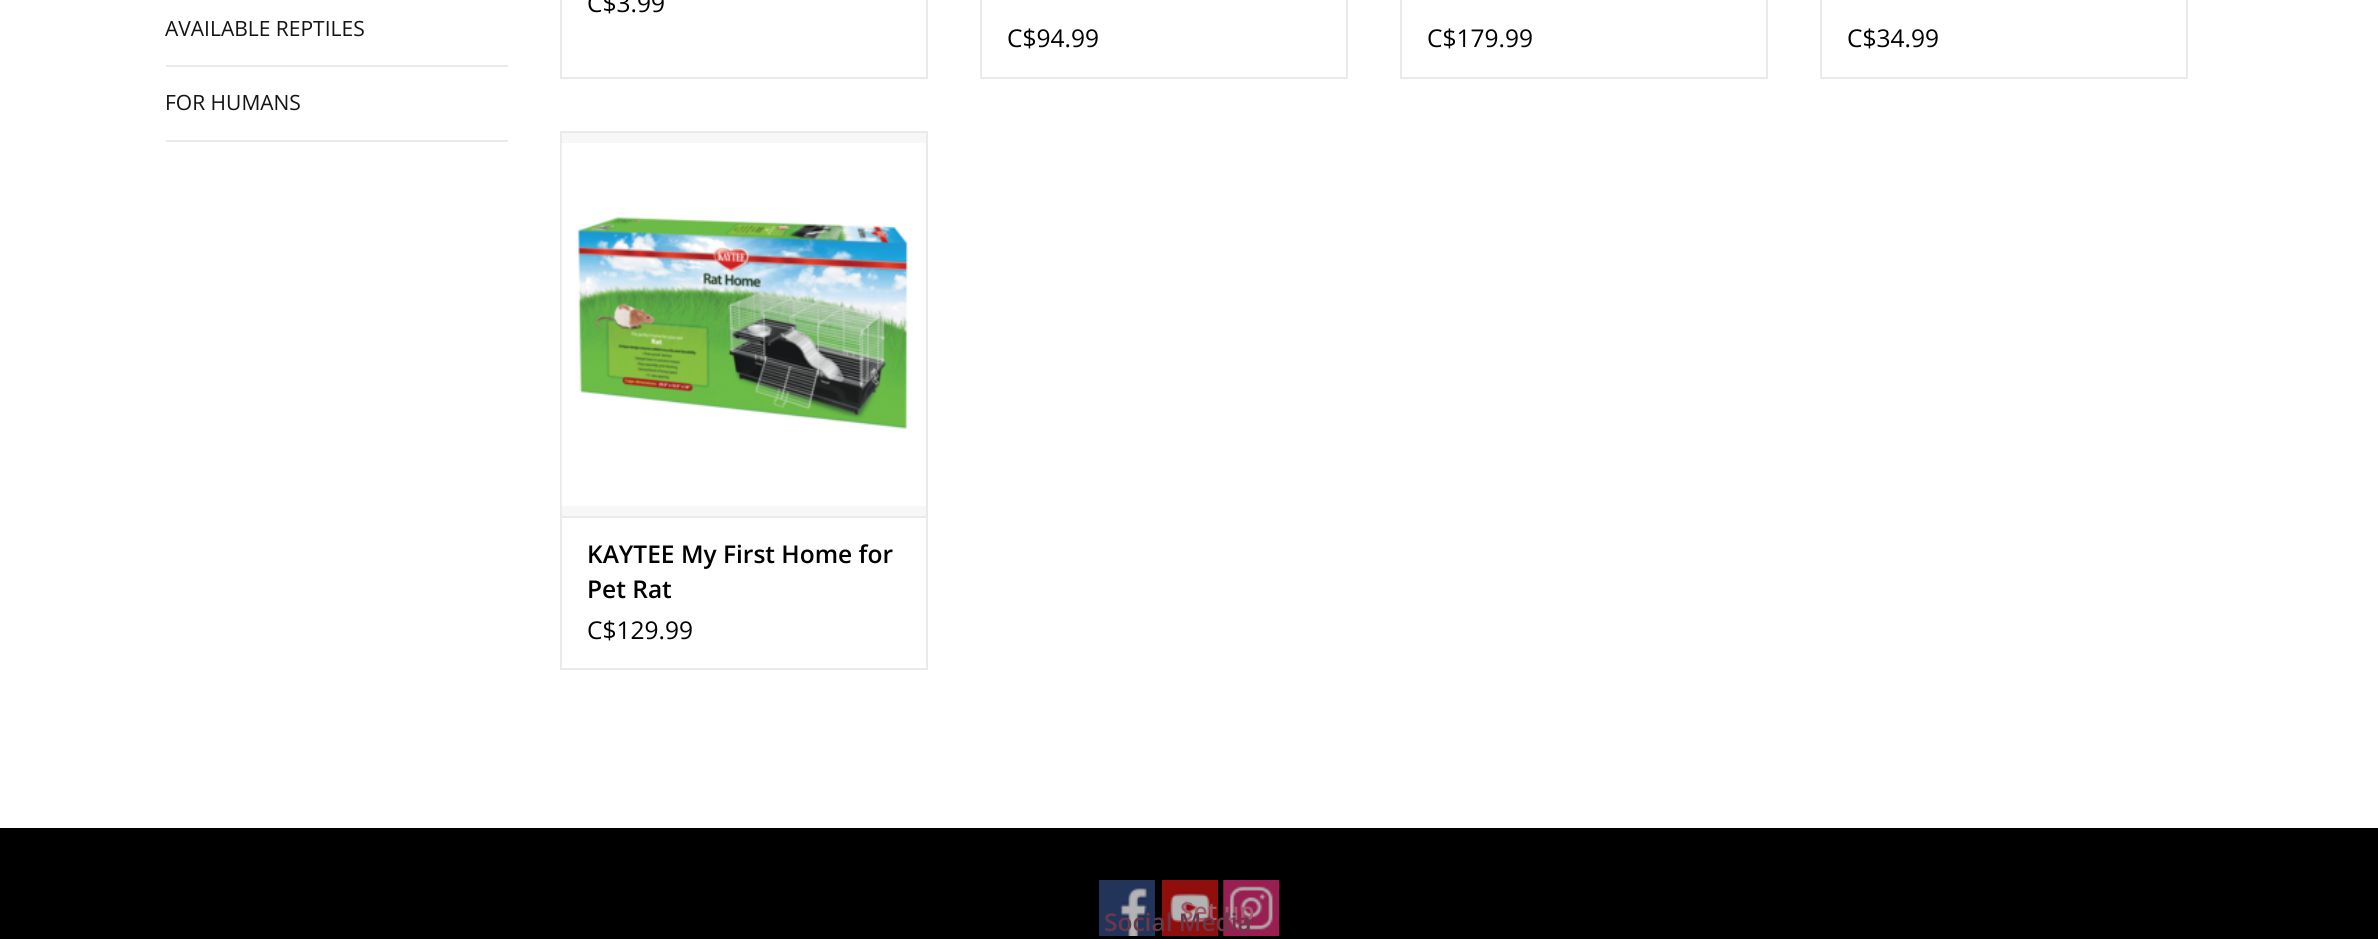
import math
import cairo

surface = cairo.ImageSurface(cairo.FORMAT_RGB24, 2378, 939)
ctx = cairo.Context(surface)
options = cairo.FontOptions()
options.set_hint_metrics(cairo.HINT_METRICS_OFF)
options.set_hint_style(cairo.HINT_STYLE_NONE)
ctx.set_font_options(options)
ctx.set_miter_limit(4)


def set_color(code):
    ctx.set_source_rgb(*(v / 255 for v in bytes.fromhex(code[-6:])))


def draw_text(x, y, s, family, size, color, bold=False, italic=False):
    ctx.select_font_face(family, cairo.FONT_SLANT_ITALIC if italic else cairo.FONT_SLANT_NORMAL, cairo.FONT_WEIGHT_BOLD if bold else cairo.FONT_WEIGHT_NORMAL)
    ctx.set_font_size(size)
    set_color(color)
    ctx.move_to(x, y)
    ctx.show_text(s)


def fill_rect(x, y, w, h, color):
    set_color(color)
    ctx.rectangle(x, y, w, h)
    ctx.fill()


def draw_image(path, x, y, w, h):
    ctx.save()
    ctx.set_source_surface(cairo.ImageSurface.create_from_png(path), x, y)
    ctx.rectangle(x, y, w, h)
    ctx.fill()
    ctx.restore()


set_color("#ffffff")
ctx.paint()
fill_rect(166, 65, 342, 2, "#eaeaea")
draw_text(165, 36, "AVAILABLE REPTILES", "Open Sans", 21, "#141414")
fill_rect(166, 140, 342, 2, "#eaeaea")
draw_text(165, 110, "FOR HUMANS", "Open Sans", 21, "#141414")
ctx.rectangle(561, -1, 366, 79)
set_color("#eaeaea")
ctx.stroke()
draw_text(587, 12, "C$3.99", "Open Sans", 24.5, "#000000")
ctx.rectangle(981, -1, 366, 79)
set_color("#eaeaea")
ctx.stroke()
draw_text(1007, 47, "C$94.99", "Open Sans", 24.5, "#000000")
ctx.rectangle(1401, -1, 366, 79)
set_color("#eaeaea")
ctx.stroke()
draw_text(1427, 47, "C$179.99", "Open Sans", 24.5, "#000000")
ctx.rectangle(1821, -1, 366, 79)
set_color("#eaeaea")
ctx.stroke()
draw_text(1847, 47, "C$34.99", "Open Sans", 24.5, "#000000")
fill_rect(562, 133, 364, 383, "#f7f7f7")
fill_rect(560, 131, 368, 2, "#eaeaea")
fill_rect(926, 131, 2, 385, "#eaeaea")
fill_rect(560, 131, 2, 385, "#eaeaea")
draw_image("assets/img1.png", 561, 143, 365, 363)
ctx.rectangle(561, 517, 366, 152)
ctx.stroke()
draw_text(587, 563, "KAYTEE My First Home for", "Open Sans SemiBold", 24.5, "#000000")
draw_text(587, 598, "Pet Rat", "Open Sans SemiBold", 24.5, "#000000")
draw_text(587, 639, "C$129.99", "Open Sans", 24.5, "#000000")
fill_rect(0, 828, 2378, 111, "#000000")
draw_image("assets/img2.png", 1099, 880, 56, 56)
draw_image("assets/img3.png", 1162, 880, 56, 56)
draw_image("assets/img4.png", 1223, 880, 57, 56)
draw_text(1180, 920, "Set up", "Open Sans SemiBold", 24.5, "#a25c6e")
draw_text(1104, 931, "Social Media", "Open Sans SemiBold", 24.5, "#6b384a")
surface.write_to_png("output.png")
